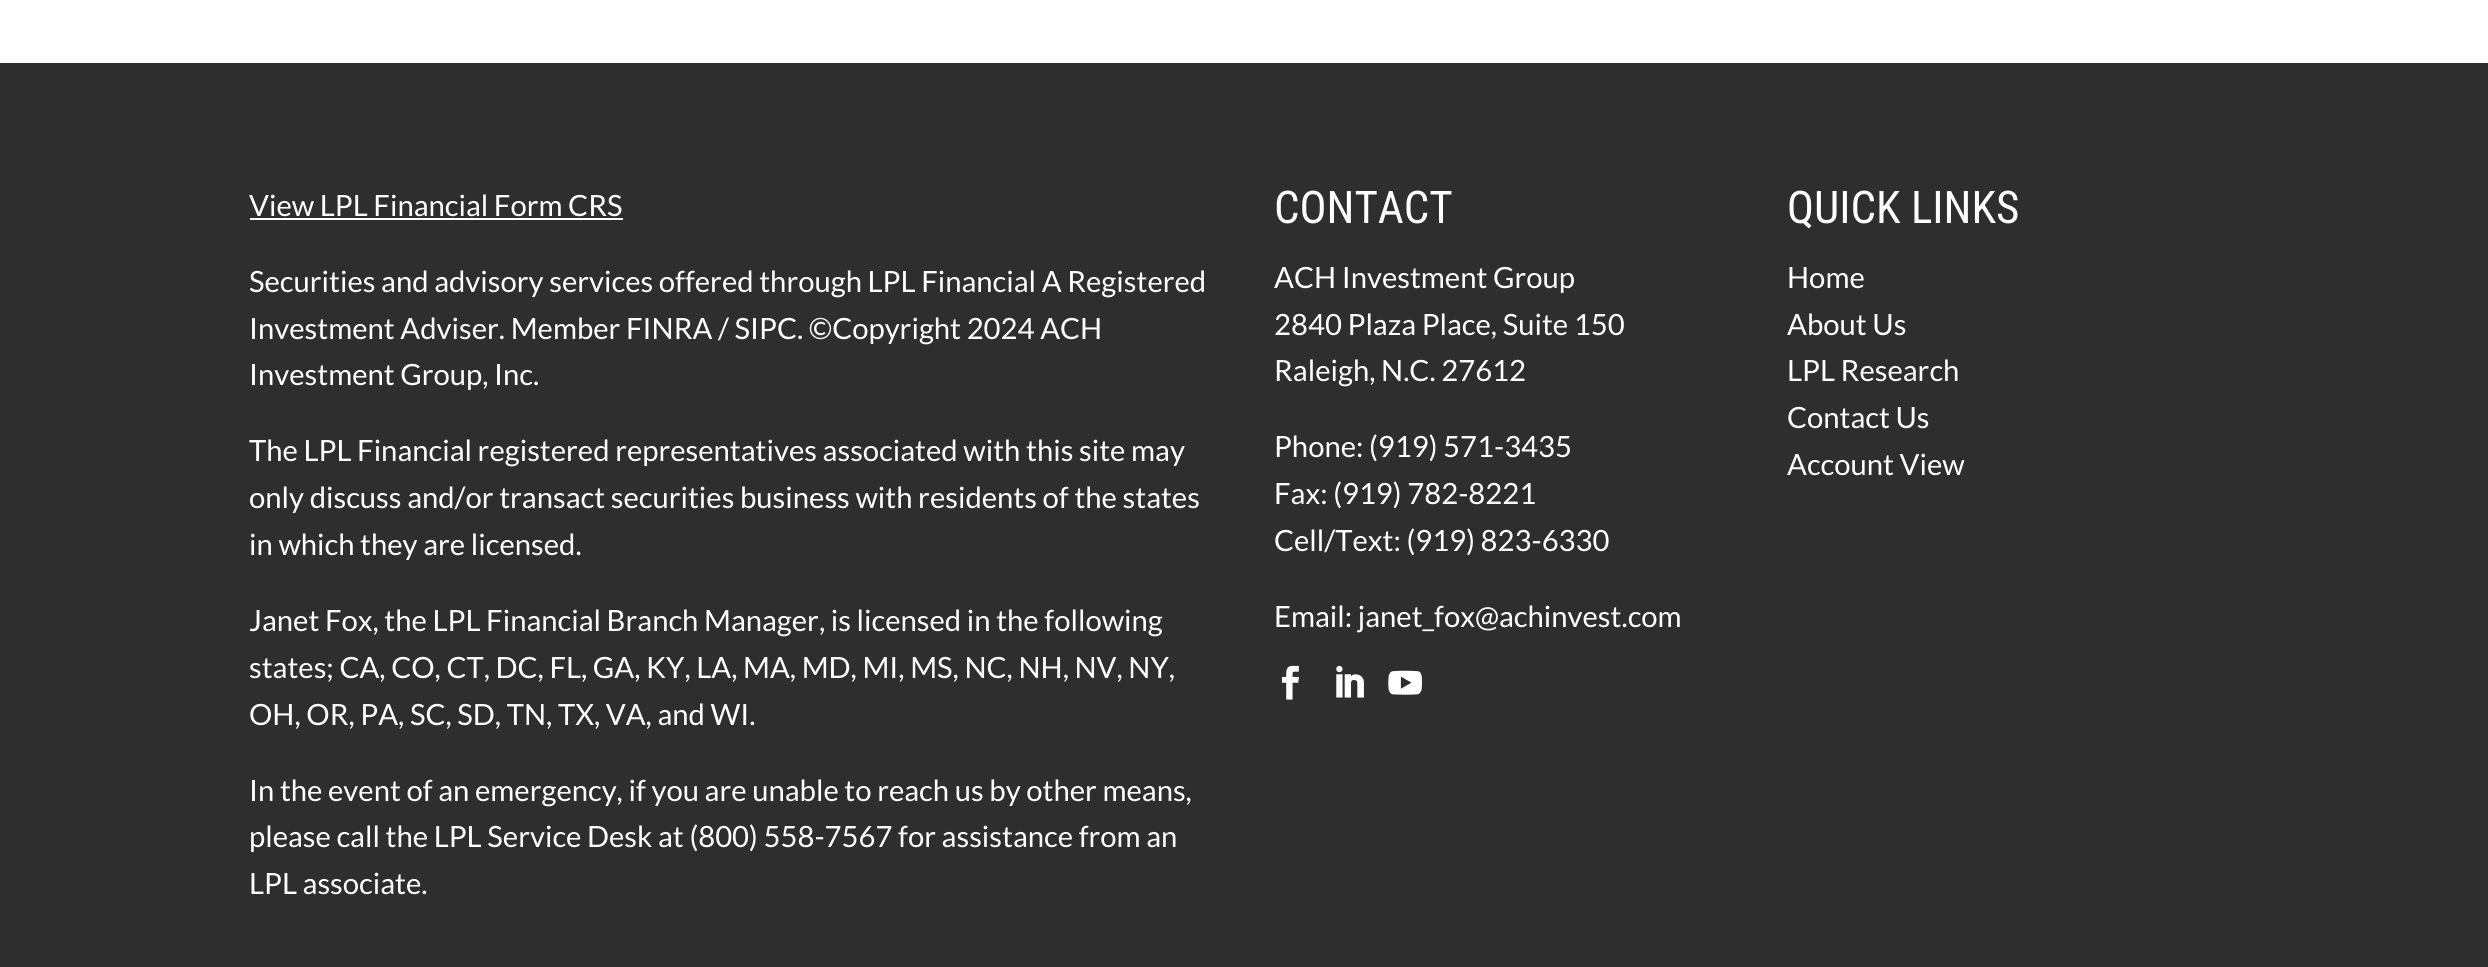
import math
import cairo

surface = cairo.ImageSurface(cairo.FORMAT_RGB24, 2488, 967)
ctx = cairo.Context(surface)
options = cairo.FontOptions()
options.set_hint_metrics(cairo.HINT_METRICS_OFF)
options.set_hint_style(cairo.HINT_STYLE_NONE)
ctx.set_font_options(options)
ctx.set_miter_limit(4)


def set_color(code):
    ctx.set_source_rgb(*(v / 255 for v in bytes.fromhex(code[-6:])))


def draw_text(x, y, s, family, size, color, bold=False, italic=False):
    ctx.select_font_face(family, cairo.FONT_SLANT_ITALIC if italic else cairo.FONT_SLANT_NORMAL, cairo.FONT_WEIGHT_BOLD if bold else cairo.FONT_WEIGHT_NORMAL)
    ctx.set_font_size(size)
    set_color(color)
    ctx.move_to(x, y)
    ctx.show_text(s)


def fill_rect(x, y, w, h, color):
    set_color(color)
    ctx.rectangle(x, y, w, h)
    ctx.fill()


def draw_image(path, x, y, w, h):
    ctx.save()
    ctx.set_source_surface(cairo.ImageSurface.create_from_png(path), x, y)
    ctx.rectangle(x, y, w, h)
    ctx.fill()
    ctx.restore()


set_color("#ffffff")
ctx.paint()
fill_rect(0, 63, 2488, 904, "#2e2e2e")
draw_text(249, 216, "View LPL Financial Form CRS", "Lato", 29.25, "#ffffff")
fill_rect(250, 218, 373, 2, "#ffffff")
draw_text(249, 292, "Securities and advisory services offered through LPL Financial A Registered", "Lato", 29.25, "#ffffff")
draw_text(249, 339, "Investment Adviser. Member FINRA / SIPC. ©Copyright 2024 ACH", "Lato", 29.25, "#ffffff")
draw_text(249, 385, "Investment Group, Inc.", "Lato", 29.25, "#ffffff")
draw_text(249, 461, "The LPL Financial registered representatives associated with this site may", "Lato", 29.25, "#ffffff")
draw_text(249, 508, "only discuss and/or transact securities business with residents of the states", "Lato", 29.25, "#ffffff")
draw_text(249, 555, "in which they are licensed.", "Lato", 29.25, "#ffffff")
draw_text(249, 631, "Janet Fox, the LPL Financial Branch Manager, is licensed in the following", "Lato", 29.25, "#ffffff")
draw_text(249, 678, "states; CA, CO, CT, DC, FL, GA, KY, LA, MA, MD, MI, MS, NC, NH, NV, NY,", "Lato", 29.25, "#ffffff")
draw_text(249, 725, "OH, OR, PA, SC, SD, TN, TX, VA, and WI.", "Lato", 29.25, "#ffffff")
draw_text(249, 801, "In the event of an emergency, if you are unable to reach us by other means,", "Lato", 29.25, "#ffffff")
draw_text(249, 847, "please call the LPL Service Desk at (800) 558-7567 for assistance from an", "Lato", 29.25, "#ffffff")
draw_text(249, 894, "LPL associate.", "Lato", 29.25, "#ffffff")
draw_text(1274, 223, "CONTACT", "Roboto Condensed", 45, "#ffffff")
draw_text(1274, 288, "ACH Investment Group", "Lato", 29.25, "#ffffff")
draw_text(1274, 335, "2840 Plaza Place, Suite 150", "Lato", 29.25, "#ffffff")
draw_text(1274, 381, "Raleigh, N.C. 27612", "Lato", 29.25, "#ffffff")
draw_text(1274, 457, "Phone: (919) 571-3435", "Lato", 29.25, "#ffffff")
draw_text(1274, 504, "Fax: (919) 782-8221", "Lato", 29.25, "#ffffff")
draw_text(1274, 551, "Cell/Text: (919) 823-6330", "Lato", 29.25, "#ffffff")
draw_text(1274, 627, "Email: janet_fox@achinvest.com", "Lato", 29.25, "#ffffff")
draw_image("assets/img1.png", 1281, 665, 18, 35)
draw_image("assets/img2.png", 1336, 665, 28, 33)
draw_image("assets/img3.png", 1388, 670, 34, 25)
draw_text(1787, 223, "QUICK LINKS", "Roboto Condensed", 45, "#ffffff")
draw_text(1787, 288, "Home", "Lato", 29.25, "#ffffff")
draw_text(1787, 335, "About Us", "Lato", 29.25, "#ffffff")
draw_text(1787, 381, "LPL Research", "Lato", 29.25, "#ffffff")
draw_text(1787, 428, "Contact Us", "Lato", 29.25, "#ffffff")
draw_text(1787, 475, "Account View", "Lato", 29.25, "#ffffff")
surface.write_to_png("output.png")
